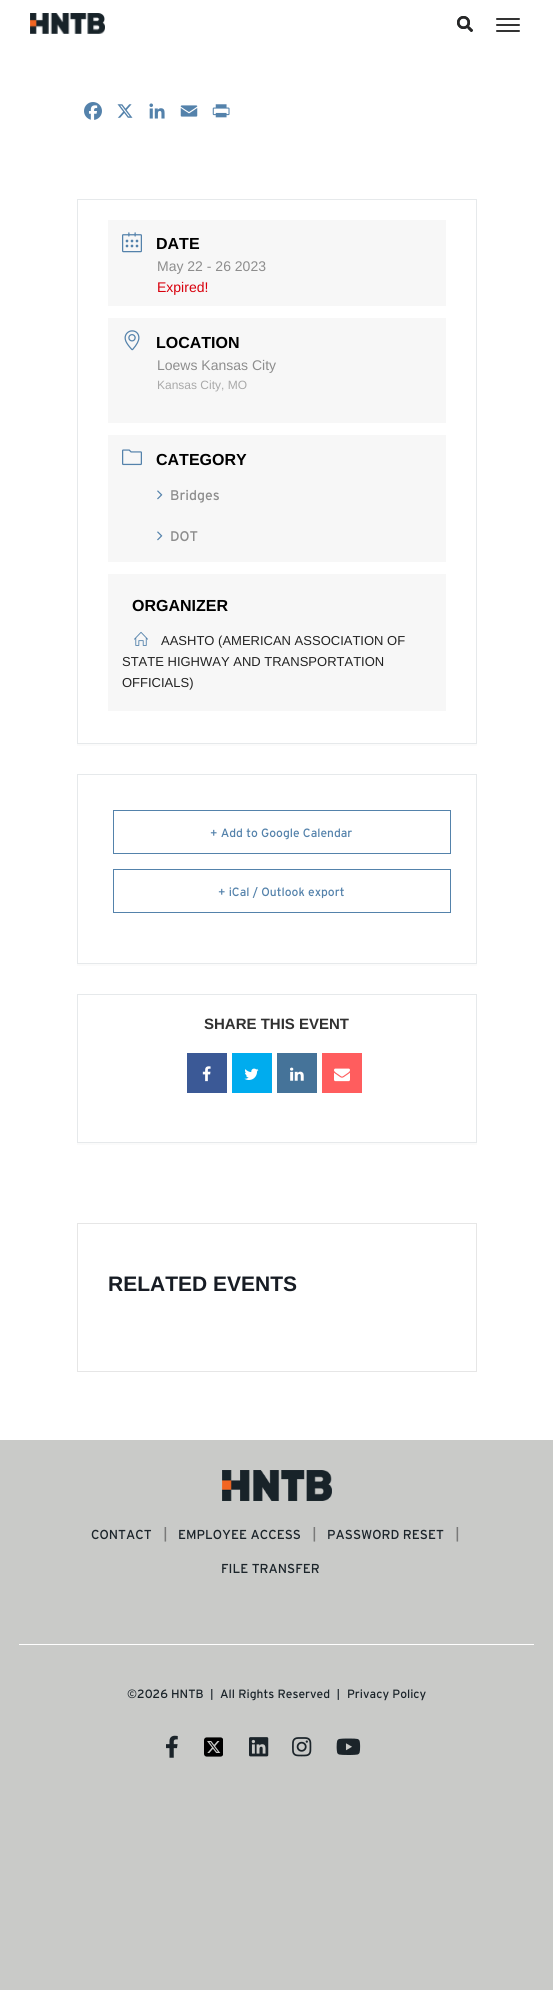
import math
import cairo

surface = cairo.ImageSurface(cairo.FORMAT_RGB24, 553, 1990)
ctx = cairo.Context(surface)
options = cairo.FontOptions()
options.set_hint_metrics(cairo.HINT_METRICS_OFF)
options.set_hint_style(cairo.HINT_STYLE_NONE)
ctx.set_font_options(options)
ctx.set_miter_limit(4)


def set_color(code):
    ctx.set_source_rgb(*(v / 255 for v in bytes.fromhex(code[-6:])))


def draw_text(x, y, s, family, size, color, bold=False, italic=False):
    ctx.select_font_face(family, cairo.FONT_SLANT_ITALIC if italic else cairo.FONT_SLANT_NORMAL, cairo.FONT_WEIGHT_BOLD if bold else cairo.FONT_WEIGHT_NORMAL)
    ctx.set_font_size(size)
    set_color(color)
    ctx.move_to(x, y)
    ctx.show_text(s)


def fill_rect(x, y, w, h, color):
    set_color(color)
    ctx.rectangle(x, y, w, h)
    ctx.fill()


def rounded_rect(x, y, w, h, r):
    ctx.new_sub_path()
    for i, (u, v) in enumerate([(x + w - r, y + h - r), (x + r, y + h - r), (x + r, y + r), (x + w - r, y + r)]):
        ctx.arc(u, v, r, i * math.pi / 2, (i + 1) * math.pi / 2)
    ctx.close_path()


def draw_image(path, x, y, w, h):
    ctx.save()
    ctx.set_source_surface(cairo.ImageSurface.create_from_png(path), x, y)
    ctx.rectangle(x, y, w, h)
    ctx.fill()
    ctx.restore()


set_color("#ffffff")
ctx.paint()
draw_image("assets/img1.png", 30, 13, 75, 21)
draw_image("assets/img2.png", 457, 16, 16, 16)
draw_image("assets/img3.png", 457, 16, 16, 16)
set_color("#333333")
rounded_rect(496, 18, 24, 2, 1)
ctx.fill()
rounded_rect(496, 24, 24, 2, 1)
ctx.fill()
rounded_rect(496, 30, 24, 2, 1)
ctx.fill()
draw_image("assets/img4.png", 84, 102, 18, 18)
draw_image("assets/img5.png", 117, 104, 16, 14)
draw_image("assets/img6.png", 149, 103, 16, 16)
draw_image("assets/img7.png", 180, 105, 18, 12)
draw_image("assets/img8.png", 212, 104, 18, 14)
fill_rect(77, 744, 400, 2, "#fbfbfb")
ctx.rectangle(77.5, 199.5, 399, 544)
set_color("#e6e9eb")
ctx.set_line_width(1)
ctx.stroke()
fill_rect(108, 220, 338, 86, "#f7f7f7")
draw_image("assets/img9.png", 122, 232, 20, 21)
draw_text(156, 249, "DATE", "Liberation Sans", 16, "#000000", bold=True)
draw_text(157, 271, "May 22 - 26 2023", "Liberation Sans", 14, "#8d8d8d")
draw_text(157, 292, "Expired!", "Liberation Sans", 14, "#d8000c")
fill_rect(108, 318, 338, 105, "#f7f7f7")
draw_image("assets/img10.png", 124, 330, 16, 21)
draw_text(156, 348, "LOCATION", "Liberation Sans", 16, "#000000", bold=True)
draw_text(157, 370, "Loews Kansas City", "Liberation Sans", 14, "#8d8d8d")
draw_text(157, 389, "Kansas City, MO", "Liberation Sans", 12, "#a9a9a9")
fill_rect(108, 435, 338, 127, "#f7f7f7")
draw_image("assets/img11.png", 122, 449, 20, 17)
draw_text(156, 465, "CATEGORY", "Liberation Sans", 16, "#000000", bold=True)
draw_image("assets/img12.png", 157, 490, 6, 10)
draw_text(170, 500, "Bridges", "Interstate", 14, "#8d8d8d")
draw_image("assets/img12.png", 157, 531, 6, 10)
draw_text(170, 541, "DOT", "Interstate", 14, "#8d8d8d")
fill_rect(108, 574, 338, 137, "#f7f7f7")
draw_text(132, 611, "ORGANIZER", "Liberation Sans", 16, "#000000", bold=True)
draw_image("assets/img13.png", 134, 631, 14, 15)
draw_text(161, 645, "AASHTO (AMERICAN ASSOCIATION OF", "Liberation Sans", 13, "#222222")
draw_text(122, 666, "STATE HIGHWAY AND TRANSPORTATION", "Liberation Sans", 13, "#222222")
draw_text(122, 687, "OFFICIALS)", "Liberation Sans", 13, "#222222")
fill_rect(77, 964, 400, 2, "#fbfbfb")
ctx.rectangle(77.5, 774.5, 399, 189)
set_color("#e6e9eb")
ctx.stroke()
ctx.rectangle(113.5, 810.5, 337, 43)
set_color("#5482ab")
ctx.stroke()
draw_text(210, 837, "+ Add to Google Calendar", "Interstate", 12, "#5482ab")
ctx.rectangle(113.5, 869.5, 337, 43)
ctx.stroke()
draw_text(218, 896, "+ iCal / Outlook export", "Interstate", 12, "#5482ab")
fill_rect(77, 1143, 400, 2, "#fbfbfb")
ctx.rectangle(77.5, 994.5, 399, 148)
set_color("#e6e9eb")
ctx.stroke()
draw_text(204, 1029, "SHARE THIS EVENT", "Liberation Sans", 15, "#313131", bold=True)
fill_rect(187, 1053, 40, 40, "#3b5996")
draw_image("assets/img14.png", 202, 1066, 9, 16)
fill_rect(232, 1053, 40, 40, "#00acee")
draw_image("assets/img15.png", 244, 1068, 15, 12)
fill_rect(277, 1053, 40, 40, "#457399")
draw_image("assets/img16.png", 290, 1067, 14, 14)
fill_rect(322, 1053, 40, 40, "#ff5d5e")
draw_image("assets/img17.png", 334, 1068, 16, 14)
ctx.rectangle(77.5, 1223.5, 399, 148)
set_color("#e6e6e6")
ctx.stroke()
draw_text(108, 1291, "RELATED EVENTS", "Liberation Sans", 21, "#171c24", bold=True)
fill_rect(0, 1440, 553, 550, "#c9cac8")
fill_rect(19, 1644, 515, 1, "#ffffff")
draw_image("assets/img18.png", 222, 1470, 110, 31)
draw_text(91, 1539, "CONTACT", "Interstate", 13, "#1b242a")
draw_text(163, 1539, "|", "Interstate", 16, "#797979")
draw_text(178, 1539, "EMPLOYEE ACCESS", "Interstate", 13, "#1b242a")
draw_text(312, 1539, "|", "Interstate", 16, "#797979")
draw_text(327, 1539, "PASSWORD RESET", "Interstate", 13, "#1b242a")
draw_text(455, 1539, "|", "Interstate", 16, "#797979")
draw_text(221, 1573, "FILE TRANSFER", "Interstate", 13, "#1b242a")
draw_text(127, 1698, "©2026 HNTB  |  All Rights Reserved  |", "Interstate", 12, "#1b242a")
draw_text(347, 1698, "Privacy Policy", "Interstate", 12, "#1b242a")
draw_image("assets/img19.png", 166, 1735, 12, 23)
draw_image("assets/img20.png", 204, 1737, 19, 20)
draw_image("assets/img21.png", 249, 1737, 20, 20)
draw_image("assets/img22.png", 292, 1737, 20, 20)
draw_image("assets/img23.png", 336, 1738, 25, 17)
surface.write_to_png("output.png")
